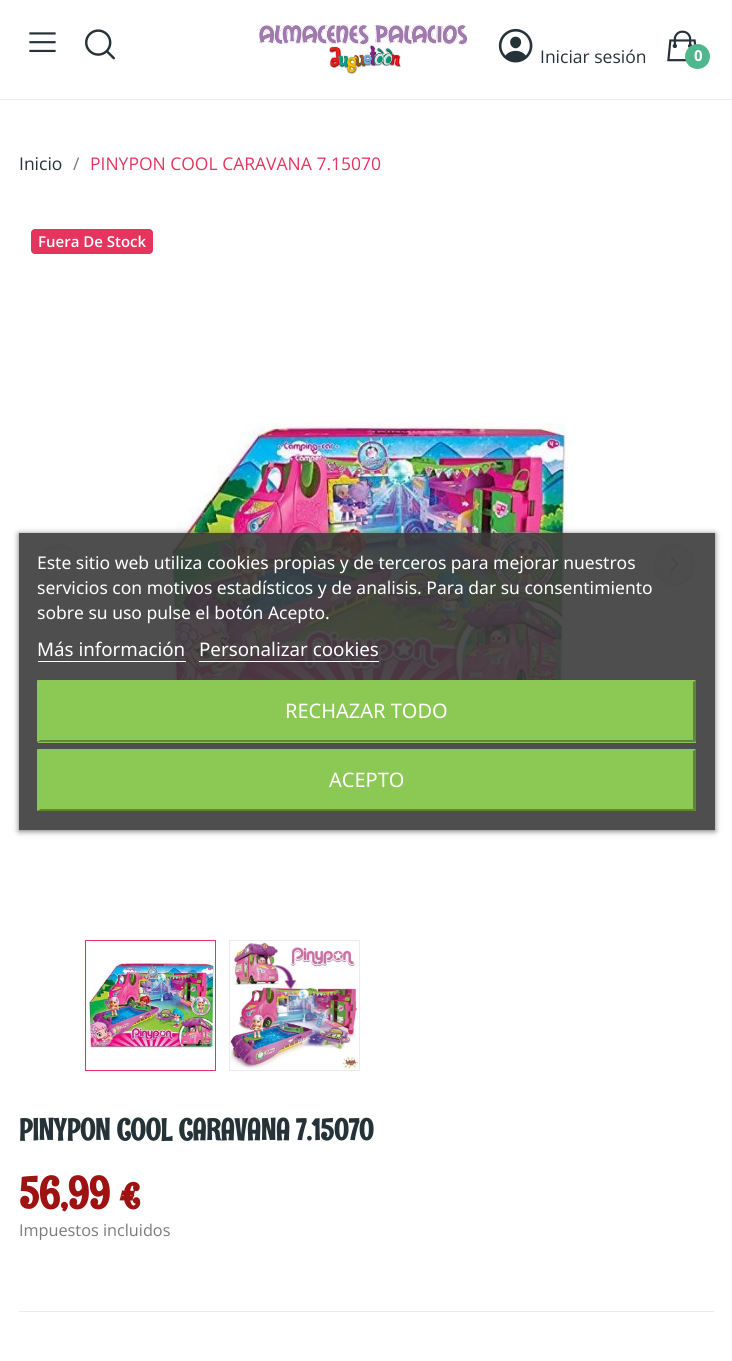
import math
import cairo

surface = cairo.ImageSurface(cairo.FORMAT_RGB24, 732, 1361)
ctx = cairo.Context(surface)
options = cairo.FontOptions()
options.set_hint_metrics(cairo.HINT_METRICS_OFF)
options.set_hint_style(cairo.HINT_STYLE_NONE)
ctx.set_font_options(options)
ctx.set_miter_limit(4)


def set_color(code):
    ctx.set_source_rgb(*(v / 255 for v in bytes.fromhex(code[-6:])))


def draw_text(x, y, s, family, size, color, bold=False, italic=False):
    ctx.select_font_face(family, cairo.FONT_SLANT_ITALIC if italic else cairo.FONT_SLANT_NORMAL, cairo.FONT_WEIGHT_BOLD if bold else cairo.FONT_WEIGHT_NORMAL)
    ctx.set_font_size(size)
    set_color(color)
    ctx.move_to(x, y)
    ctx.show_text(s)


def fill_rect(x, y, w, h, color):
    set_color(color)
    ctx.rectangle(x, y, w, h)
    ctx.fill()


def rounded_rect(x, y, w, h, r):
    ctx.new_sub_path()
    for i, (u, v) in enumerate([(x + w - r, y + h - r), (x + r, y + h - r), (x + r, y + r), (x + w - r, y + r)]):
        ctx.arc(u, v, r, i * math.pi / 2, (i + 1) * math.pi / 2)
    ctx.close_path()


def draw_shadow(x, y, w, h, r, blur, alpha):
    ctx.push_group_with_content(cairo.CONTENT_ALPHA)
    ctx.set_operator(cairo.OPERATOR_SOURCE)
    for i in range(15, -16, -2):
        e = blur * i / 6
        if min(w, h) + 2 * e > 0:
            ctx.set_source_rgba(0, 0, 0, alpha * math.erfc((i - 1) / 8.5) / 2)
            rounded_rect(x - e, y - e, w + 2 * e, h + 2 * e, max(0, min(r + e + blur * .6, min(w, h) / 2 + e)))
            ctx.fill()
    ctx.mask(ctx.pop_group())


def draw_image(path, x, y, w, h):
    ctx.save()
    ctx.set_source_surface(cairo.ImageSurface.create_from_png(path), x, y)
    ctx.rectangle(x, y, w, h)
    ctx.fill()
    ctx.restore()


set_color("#ffffff")
ctx.paint()
fill_rect(0, 99, 732, 1, "#ebebeb")
draw_image("assets/img1.png", 29, 32, 27, 21)
draw_image("assets/img2.png", 85, 29, 30, 31)
draw_image("assets/img3.png", 259, 25, 209, 49)
draw_image("assets/img4.png", 498, 28, 35, 35)
draw_text(540, 63, "Iniciar sesión", "Open Sans", 17.5, "#253237")
draw_image("assets/img5.png", 667, 30, 30, 32)
set_color("#4fb68d")
ctx.arc(697.5, 56.5, 12.5, 0, 2 * math.pi)
ctx.fill()
draw_text(694, 61, "0", "Open Sans", 15, "#ffffff", bold=True)
draw_text(19, 170, "Inicio", "Open Sans", 17.5, "#253237")
draw_text(73, 170, "/", "Open Sans", 17.5, "#7a7a7a")
draw_text(90, 170, "PINYPON COOL CARAVANA 7.15070", "Open Sans", 17.5, "#e5355f")
rounded_rect(31, 229, 122, 25, 4)
ctx.fill()
draw_text(38, 247, "Fuera De Stock", "Open Sans SemiBold", 15, "#ffffff")
set_color("#f5f5f5")
ctx.new_path()
ctx.arc(59, 565, 19.5, 0, 2 * math.pi)
ctx.fill_preserve()
set_color("#ebebeb")
ctx.set_line_width(3)
ctx.stroke()
draw_image("assets/img6.png", 56, 557, 7, 14)
draw_image("assets/img7.png", 161, 422, 413, 258)
set_color("#f5f5f5")
ctx.arc(674, 565, 19.5, 0, 2 * math.pi)
ctx.fill_preserve()
set_color("#ebebeb")
ctx.stroke()
draw_image("assets/img8.png", 670, 557, 8, 14)
ctx.rectangle(85.5, 940.5, 130, 130)
set_color("#e5355f")
ctx.set_line_width(1)
ctx.stroke()
draw_image("assets/img9.png", 86, 962, 129, 88)
ctx.rectangle(229.5, 940.5, 130, 130)
set_color("#ebebeb")
ctx.stroke()
draw_image("assets/img10.png", 230, 941, 129, 129)
draw_text(19, 1140, "PINYPON COOL CARAVANA 7.15070", "Rum Raisin", 30, "#253237", bold=True)
draw_text(19, 1208, "56,99 €", "Rum Raisin", 44, "#9e1212", bold=True)
draw_text(19, 1236, "Impuestos incluidos", "Open Sans", 16.25, "#7a7a7a")
fill_rect(19, 1311, 695, 1, "#ebebeb")
ctx.save()
ctx.set_fill_rule(cairo.FILL_RULE_EVEN_ODD)
ctx.new_path()
ctx.move_to(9, 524)
ctx.line_to(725, 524)
ctx.line_to(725, 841)
ctx.line_to(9, 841)
ctx.close_path()
ctx.move_to(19, 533)
ctx.line_to(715, 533)
ctx.line_to(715, 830)
ctx.line_to(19, 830)
ctx.close_path()
ctx.clip()
set_color("#707070")
draw_shadow(19, 534, 696, 297, 0, 3, 1)
ctx.restore()
ctx.set_source_rgba(0.231, 0.231, 0.231, 0.9)
ctx.rectangle(19, 533, 696, 297)
ctx.fill()
draw_text(37, 569, "Este sitio web utiliza cookies propias y de terceros para mejorar nuestros", "Noto Sans", 17.5, "#ffffff")
draw_text(37, 594, "servicios con motivos estadísticos y de analisis. Para dar su consentimiento", "Noto Sans", 17.5, "#ffffff")
draw_text(37, 619, "sobre su uso pulse el botón Acepto.", "Noto Sans", 17.5, "#ffffff")
draw_text(37, 656, "Más información", "Noto Sans", 18.75, "#ffffff")
fill_rect(38, 661, 148, 1, "#ffffff")
draw_text(199, 656, "Personalizar cookies", "Noto Sans", 18.75, "#ffffff")
fill_rect(199, 661, 180, 1, "#ffffff")
fill_rect(38, 680, 658, 63, "#8bc954")
ctx.new_path()
ctx.move_to(37, 680)
ctx.line_to(696, 680)
ctx.line_to(693, 682)
ctx.line_to(40, 682)
ctx.close_path()
ctx.fill()
set_color("#5d8638")
ctx.new_path()
ctx.move_to(696, 680)
ctx.line_to(696, 742)
ctx.line_to(693, 740)
ctx.line_to(693, 682)
ctx.close_path()
ctx.fill()
ctx.new_path()
ctx.move_to(696, 742)
ctx.line_to(37, 742)
ctx.line_to(40, 740)
ctx.line_to(693, 740)
ctx.close_path()
ctx.fill()
set_color("#8bc954")
ctx.new_path()
ctx.move_to(37, 742)
ctx.line_to(37, 680)
ctx.line_to(40, 682)
ctx.line_to(40, 740)
ctx.close_path()
ctx.fill()
draw_text(285, 718, "RECHAZAR TODO", "Noto Sans", 20, "#ffffff")
fill_rect(38, 749, 658, 62, "#8bc954")
ctx.new_path()
ctx.move_to(37, 749)
ctx.line_to(696, 749)
ctx.line_to(693, 751)
ctx.line_to(40, 751)
ctx.close_path()
ctx.fill()
set_color("#5d8638")
ctx.new_path()
ctx.move_to(696, 749)
ctx.line_to(696, 811)
ctx.line_to(693, 809)
ctx.line_to(693, 751)
ctx.close_path()
ctx.fill()
ctx.new_path()
ctx.move_to(696, 811)
ctx.line_to(37, 811)
ctx.line_to(40, 809)
ctx.line_to(693, 809)
ctx.close_path()
ctx.fill()
set_color("#8bc954")
ctx.new_path()
ctx.move_to(37, 811)
ctx.line_to(37, 749)
ctx.line_to(40, 751)
ctx.line_to(40, 809)
ctx.close_path()
ctx.fill()
draw_text(329, 787, "ACEPTO", "Noto Sans", 20, "#ffffff")
surface.write_to_png("output.png")
